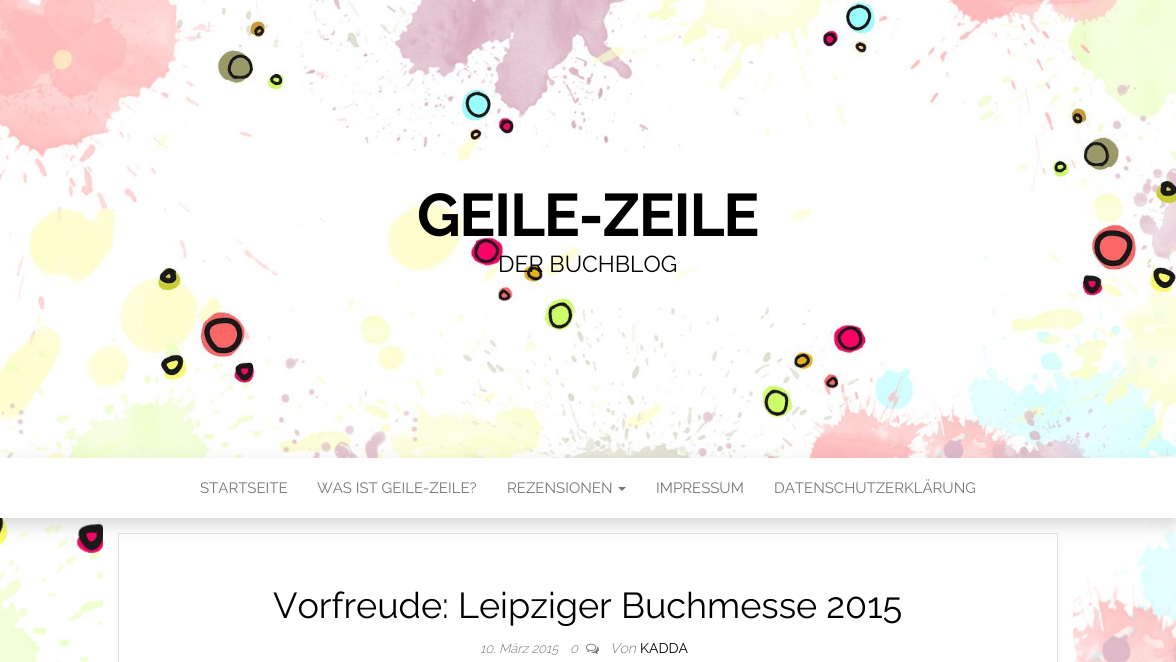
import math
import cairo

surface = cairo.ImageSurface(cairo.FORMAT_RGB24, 1176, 662)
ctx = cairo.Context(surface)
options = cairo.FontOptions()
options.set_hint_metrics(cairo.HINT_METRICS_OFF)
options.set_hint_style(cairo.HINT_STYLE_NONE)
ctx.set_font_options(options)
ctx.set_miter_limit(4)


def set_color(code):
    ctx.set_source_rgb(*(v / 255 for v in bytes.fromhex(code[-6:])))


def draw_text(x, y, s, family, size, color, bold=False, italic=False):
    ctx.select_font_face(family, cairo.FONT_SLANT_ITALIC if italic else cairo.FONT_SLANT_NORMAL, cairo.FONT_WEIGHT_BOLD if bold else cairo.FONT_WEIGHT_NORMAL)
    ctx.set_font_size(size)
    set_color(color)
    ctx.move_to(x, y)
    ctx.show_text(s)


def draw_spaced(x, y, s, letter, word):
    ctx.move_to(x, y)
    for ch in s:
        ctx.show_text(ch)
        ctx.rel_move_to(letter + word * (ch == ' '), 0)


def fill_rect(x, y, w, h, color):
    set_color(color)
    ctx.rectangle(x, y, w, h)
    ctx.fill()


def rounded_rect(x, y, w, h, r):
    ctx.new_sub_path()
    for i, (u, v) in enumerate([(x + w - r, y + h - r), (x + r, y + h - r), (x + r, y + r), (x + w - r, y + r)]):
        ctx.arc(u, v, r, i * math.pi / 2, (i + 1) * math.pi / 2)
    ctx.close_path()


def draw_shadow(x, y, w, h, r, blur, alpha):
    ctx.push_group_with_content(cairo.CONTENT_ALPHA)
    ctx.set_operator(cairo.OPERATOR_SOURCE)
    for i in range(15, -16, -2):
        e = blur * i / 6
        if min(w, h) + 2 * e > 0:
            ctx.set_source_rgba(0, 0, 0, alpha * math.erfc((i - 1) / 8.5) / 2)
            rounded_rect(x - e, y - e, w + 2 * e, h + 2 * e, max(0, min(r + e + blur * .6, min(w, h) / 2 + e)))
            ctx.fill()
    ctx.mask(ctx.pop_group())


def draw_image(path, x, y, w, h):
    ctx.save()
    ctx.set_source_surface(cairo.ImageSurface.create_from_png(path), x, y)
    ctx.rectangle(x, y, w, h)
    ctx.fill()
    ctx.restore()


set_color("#ffffff")
ctx.paint()
draw_image("assets/img1.png", 0, 518, 1176, 144)
draw_image("assets/img2.png", 0, 0, 1176, 458)
ctx.select_font_face("Raleway", cairo.FONT_SLANT_NORMAL, cairo.FONT_WEIGHT_BOLD)
ctx.set_font_size(60)
set_color("#000000")
draw_spaced(417, 236, "GEILE-ZEILE", -1.25, 0)
draw_text(498, 272, "DER BUCHBLOG", "Raleway", 23, "#000000")
fill_rect(103, 518, 970, 144, "#ffffff")
set_color("#000000")
draw_shadow(1, 466, 1174, 58, 0, 9.5, 0.17)
fill_rect(0, 458, 1176, 60, "#ffffff")
draw_text(200, 493, "STARTSEITE", "Raleway", 15, "#777777")
draw_text(317, 493, "WAS IST GEILE-ZEILE?", "Raleway", 15, "#777777")
draw_text(507, 493, "REZENSIONEN", "Raleway", 15, "#777777")
ctx.new_path()
ctx.move_to(618, 487)
ctx.line_to(626, 487)
ctx.line_to(622, 491)
ctx.close_path()
ctx.fill()
draw_text(656, 493, "IMPRESSUM", "Raleway", 15, "#777777")
draw_text(774, 493, "DATENSCHUTZERKLÄRUNG", "Raleway", 15, "#777777")
ctx.rectangle(118.5, 533.5, 939, 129)
set_color("#dddddd")
ctx.set_line_width(1)
ctx.stroke()
draw_text(273, 618, "Vorfreude: Leipziger Buchmesse 2015", "Raleway", 36, "#000000")
draw_text(480, 653, "10. März 2015", "Raleway Light", 13, "#777777", italic=True)
draw_text(570, 653, "0", "Raleway Light", 13, "#777777", italic=True)
draw_image("assets/img3.png", 586, 643, 13, 11)
draw_text(610, 653, "Von", "Raleway Light", 14, "#777777", italic=True)
draw_text(640, 653, "KADDA", "Raleway", 14, "#000000")
surface.write_to_png("output.png")
